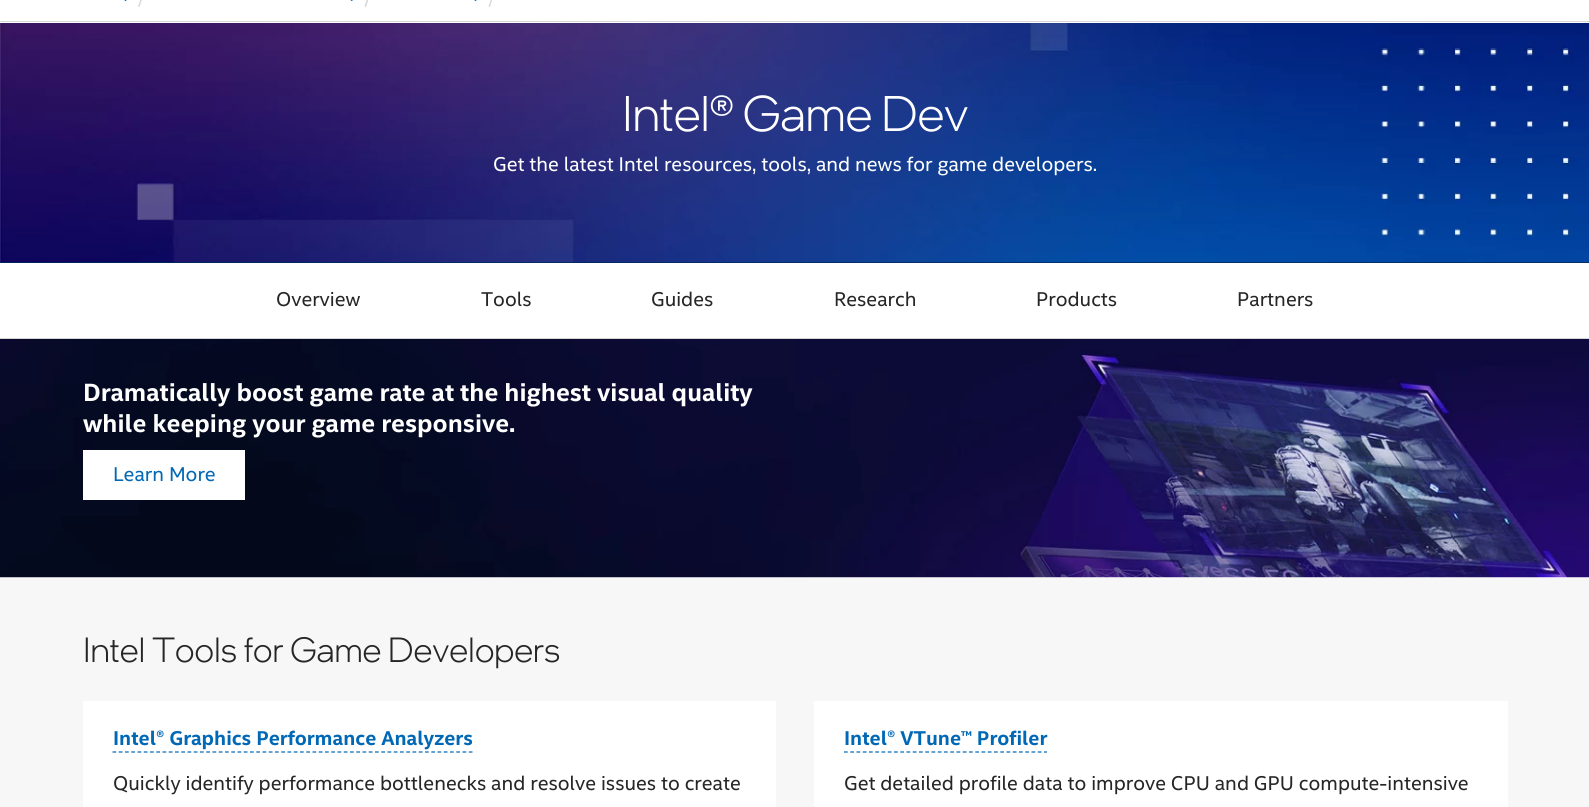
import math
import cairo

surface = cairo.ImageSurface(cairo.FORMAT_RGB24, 1589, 807)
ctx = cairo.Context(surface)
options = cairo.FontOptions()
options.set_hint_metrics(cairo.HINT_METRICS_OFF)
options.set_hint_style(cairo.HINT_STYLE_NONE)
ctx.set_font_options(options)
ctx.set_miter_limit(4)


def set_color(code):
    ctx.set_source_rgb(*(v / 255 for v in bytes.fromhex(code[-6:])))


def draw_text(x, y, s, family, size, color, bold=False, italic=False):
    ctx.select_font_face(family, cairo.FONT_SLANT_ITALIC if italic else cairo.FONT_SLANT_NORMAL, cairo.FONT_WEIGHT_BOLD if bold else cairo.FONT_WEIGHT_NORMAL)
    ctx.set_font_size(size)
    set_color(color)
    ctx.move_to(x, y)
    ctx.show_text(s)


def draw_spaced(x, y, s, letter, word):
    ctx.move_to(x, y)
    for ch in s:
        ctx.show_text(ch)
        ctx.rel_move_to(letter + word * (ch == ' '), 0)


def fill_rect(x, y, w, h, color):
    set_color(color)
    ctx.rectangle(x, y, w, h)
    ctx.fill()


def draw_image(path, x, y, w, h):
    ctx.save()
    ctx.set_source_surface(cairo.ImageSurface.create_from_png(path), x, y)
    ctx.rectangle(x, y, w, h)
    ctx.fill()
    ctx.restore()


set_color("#ffffff")
ctx.paint()
fill_rect(0, 21, 1589, 1, "#d7d7d7")
draw_image("assets/img1.png", 124, 0, 3, 1)
ctx.new_path()
ctx.move_to(144.5, -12)
ctx.line_to(145.5, -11.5)
ctx.line_to(139.5, 7)
ctx.line_to(138, 6.5)
ctx.close_path()
ctx.fill()
draw_image("assets/img2.png", 350, 0, 3, 1)
ctx.new_path()
ctx.move_to(370.5, -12)
ctx.line_to(372, -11.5)
ctx.line_to(366, 7)
ctx.line_to(364.5, 6.5)
ctx.close_path()
ctx.fill()
draw_image("assets/img1.png", 474, 0, 3, 1)
ctx.new_path()
ctx.move_to(495, -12)
ctx.line_to(496, -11.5)
ctx.line_to(490, 7)
ctx.line_to(488.5, 6.5)
ctx.close_path()
ctx.fill()
fill_rect(0, 262, 1589, 1, "#00285a")
draw_image("assets/img3.png", 0, 23, 1589, 240)
ctx.select_font_face("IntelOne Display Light")
ctx.set_font_size(50)
set_color("#ffffff")
draw_spaced(622, 131, "Intel® Game Dev", -0.25, 0)
draw_text(493, 171, "Get the latest Intel resources, tools, and news for game developers.", "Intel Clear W", 20, "#ffffff")
fill_rect(0, 338, 1589, 1, "#d7d7d7")
draw_text(276, 306, "Overview", "Intel Clear W", 20, "#262626")
draw_text(481, 306, "Tools", "Intel Clear W", 20, "#262626")
draw_text(651, 306, "Guides", "Intel Clear W", 20, "#262626")
draw_text(834, 306, "Research", "Intel Clear W", 20, "#262626")
draw_text(1036, 306, "Products", "Intel Clear W", 20, "#262626")
draw_text(1237, 306, "Partners", "Intel Clear W", 20, "#262626")
draw_image("assets/img4.png", 0, 339, 1589, 239)
draw_text(83, 401, "Dramatically boost game rate at the highest visual quality", "Intel Clear W", 25, "#ffffff", bold=True)
draw_text(83, 432, "while keeping your game responsive.", "Intel Clear W", 25, "#ffffff", bold=True)
fill_rect(83, 450, 162, 50, "#ffffff")
draw_text(113, 481, "Learn More", "Intel Clear W", 20, "#0068b5")
fill_rect(0, 578, 1589, 229, "#f7f7f7")
draw_text(83, 662, "Intel Tools for Game Developers", "IntelOne Display Light", 35, "#262626")
fill_rect(83, 701, 693, 106, "#ffffff")
draw_text(113, 745, "Intel® Graphics Performance Analyzers", "Intel Clear W", 20, "#0068b5", bold=True)
ctx.new_path()
ctx.move_to(112.5, 752)
ctx.line_to(472.5, 752)
ctx.set_line_width(1.2)
ctx.set_dash([3.75, 2.5])
ctx.stroke()
draw_text(113, 790, "Quickly identify performance bottlenecks and resolve issues to create", "Intel Clear W", 20, "#262626")
fill_rect(814, 701, 694, 106, "#ffffff")
draw_text(844, 745, "Intel® VTune™ Profiler", "Intel Clear W", 20, "#0068b5", bold=True)
ctx.new_path()
ctx.move_to(844, 752)
ctx.line_to(1047, 752)
ctx.stroke()
draw_text(844, 790, "Get detailed profile data to improve CPU and GPU compute-intensive", "Intel Clear W", 20, "#262626")
surface.write_to_png("output.png")
